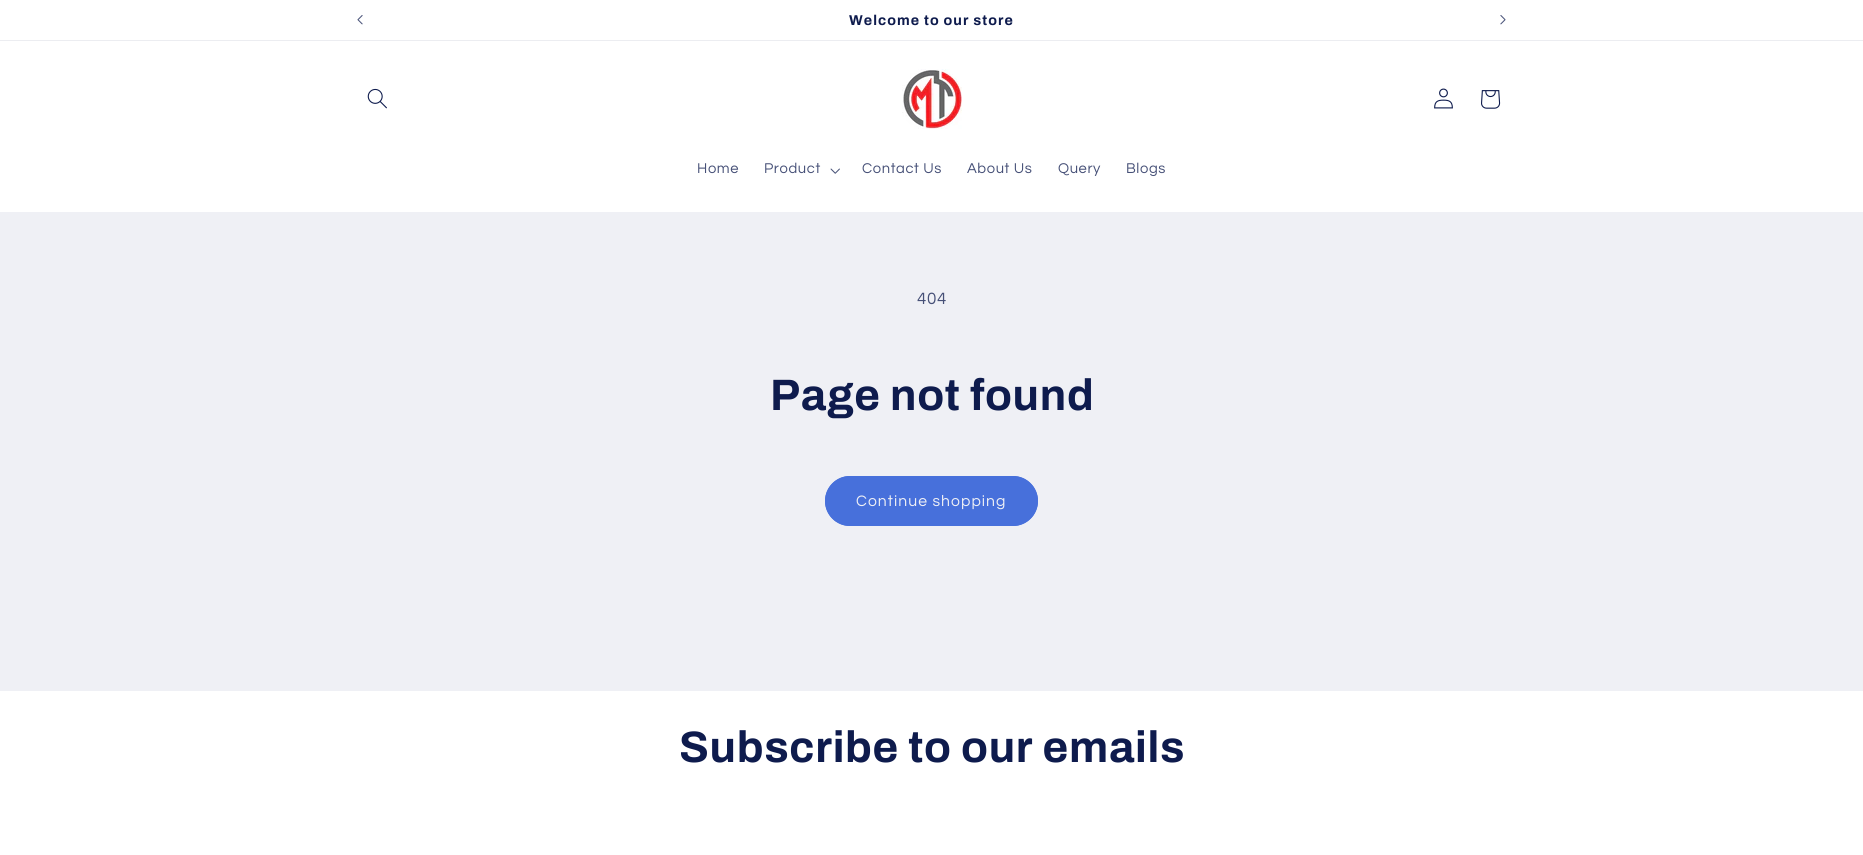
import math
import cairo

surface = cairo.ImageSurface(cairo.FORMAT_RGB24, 1863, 855)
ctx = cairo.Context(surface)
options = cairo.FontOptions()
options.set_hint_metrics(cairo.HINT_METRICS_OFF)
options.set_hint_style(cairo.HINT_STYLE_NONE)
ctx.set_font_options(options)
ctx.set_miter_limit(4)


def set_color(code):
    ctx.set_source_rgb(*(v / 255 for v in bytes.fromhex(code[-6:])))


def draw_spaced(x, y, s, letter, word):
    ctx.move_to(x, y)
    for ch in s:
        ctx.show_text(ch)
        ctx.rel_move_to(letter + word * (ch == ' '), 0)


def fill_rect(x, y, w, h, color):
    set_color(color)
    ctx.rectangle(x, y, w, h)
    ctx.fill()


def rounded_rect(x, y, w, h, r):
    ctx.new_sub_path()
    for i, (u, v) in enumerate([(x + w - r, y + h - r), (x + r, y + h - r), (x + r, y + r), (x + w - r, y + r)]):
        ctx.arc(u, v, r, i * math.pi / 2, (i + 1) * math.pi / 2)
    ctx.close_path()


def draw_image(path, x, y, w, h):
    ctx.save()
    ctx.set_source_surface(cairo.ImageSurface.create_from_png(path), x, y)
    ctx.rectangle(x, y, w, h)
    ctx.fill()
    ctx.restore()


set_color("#eff0f5")
ctx.paint()
fill_rect(0, 0, 1863, 40, "#ffffff")
fill_rect(0, 40, 1863, 1, "#ecedf1")
draw_image("assets/img1.png", 357, 15, 6, 10)
ctx.select_font_face("Archivo", cairo.FONT_SLANT_NORMAL, cairo.FONT_WEIGHT_BOLD)
ctx.set_font_size(14.25)
set_color("#0e1b4d")
draw_spaced(849, 25, "Welcome to our store", 1.05, 0)
draw_image("assets/img2.png", 1500, 15, 6, 10)
fill_rect(0, 41, 1863, 171, "#ffffff")
draw_image("assets/img3.png", 367, 88, 20, 21)
draw_image("assets/img4.png", 902, 69, 60, 60)
draw_image("assets/img5.png", 1434, 88, 19, 21)
draw_image("assets/img6.png", 1481, 90, 20, 19)
ctx.select_font_face("Questrial")
ctx.set_font_size(14.75)
set_color("#465077")
draw_spaced(697, 173, "Home", 0.6, 0)
draw_spaced(764, 173, "Product", 0.6, 0)
draw_image("assets/img7.png", 830, 168, 10, 6)
draw_spaced(862, 173, "Contact Us", 0.6, 0)
draw_spaced(967, 173, "About Us", 0.6, 0)
draw_spaced(1058, 173, "Query", 0.6, 0)
draw_spaced(1126, 173, "Blogs", 0.6, 0)
ctx.set_font_size(17)
draw_spaced(917, 304, "404", 0.6, 0)
ctx.select_font_face("Archivo", cairo.FONT_SLANT_NORMAL, cairo.FONT_WEIGHT_BOLD)
ctx.set_font_size(44)
set_color("#0e1b4d")
draw_spaced(770, 410, "Page not found", 0.7, 0)
set_color("#4770db")
rounded_rect(825, 476, 213, 50, 25)
ctx.fill()
rounded_rect(825.5, 476.5, 212, 49, 24.5)
ctx.set_line_width(1)
ctx.stroke()
ctx.select_font_face("Questrial")
ctx.set_font_size(15.75)
set_color("#eff0f5")
draw_spaced(856, 506, "Continue shopping", 1.05, 0)
fill_rect(0, 691, 1863, 164, "#ffffff")
ctx.select_font_face("Archivo", cairo.FONT_SLANT_NORMAL, cairo.FONT_WEIGHT_BOLD)
ctx.set_font_size(44)
set_color("#0e1b4d")
draw_spaced(679, 762, "Subscribe to our emails", 0.7, 0)
surface.write_to_png("output.png")
